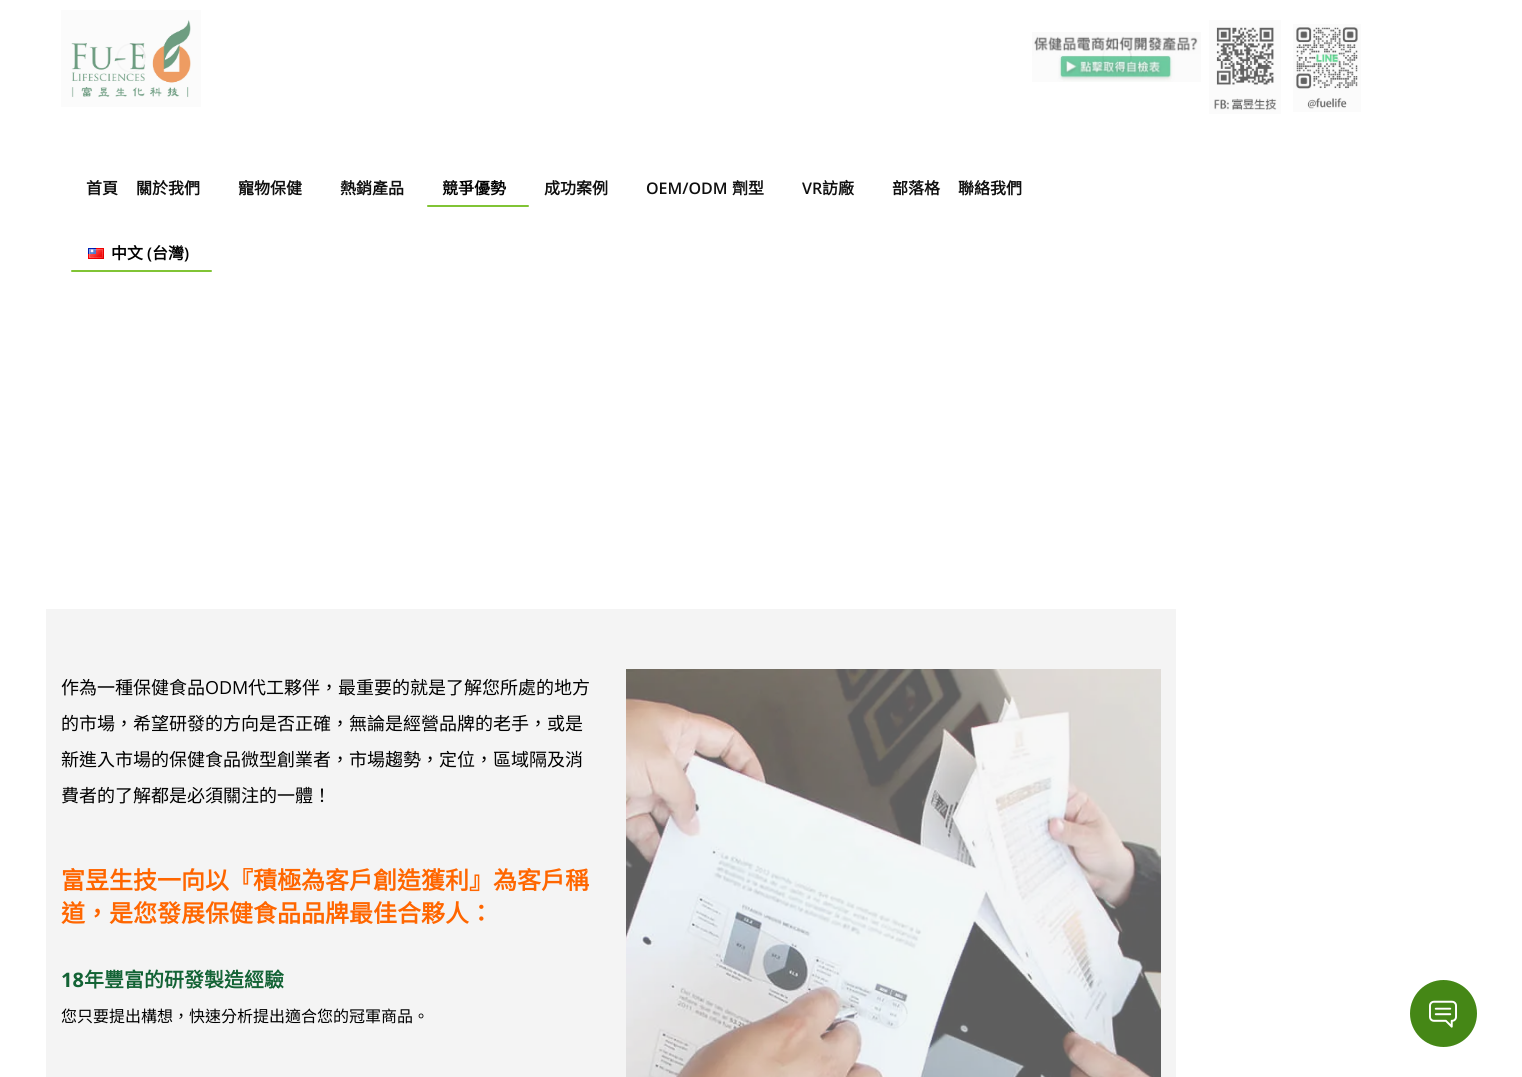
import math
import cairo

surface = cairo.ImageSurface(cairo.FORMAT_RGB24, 1522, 1077)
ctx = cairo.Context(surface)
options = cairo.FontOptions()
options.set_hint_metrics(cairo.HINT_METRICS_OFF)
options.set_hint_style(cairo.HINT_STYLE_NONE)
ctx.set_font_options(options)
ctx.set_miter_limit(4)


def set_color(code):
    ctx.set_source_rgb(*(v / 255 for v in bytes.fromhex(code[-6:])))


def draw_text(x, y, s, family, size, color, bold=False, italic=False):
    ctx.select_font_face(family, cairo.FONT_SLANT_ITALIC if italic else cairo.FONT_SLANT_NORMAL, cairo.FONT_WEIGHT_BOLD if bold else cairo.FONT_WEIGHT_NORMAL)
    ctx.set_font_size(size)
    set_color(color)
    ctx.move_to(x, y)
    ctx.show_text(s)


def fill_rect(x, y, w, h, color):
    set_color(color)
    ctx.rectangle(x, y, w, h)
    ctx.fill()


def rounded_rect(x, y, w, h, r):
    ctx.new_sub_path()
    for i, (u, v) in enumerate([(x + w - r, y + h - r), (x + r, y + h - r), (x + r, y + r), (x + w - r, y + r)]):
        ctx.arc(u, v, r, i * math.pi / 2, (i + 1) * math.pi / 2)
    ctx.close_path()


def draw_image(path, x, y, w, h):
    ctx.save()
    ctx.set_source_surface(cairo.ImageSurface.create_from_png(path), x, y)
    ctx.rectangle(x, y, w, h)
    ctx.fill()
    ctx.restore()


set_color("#ffffff")
ctx.paint()
fill_rect(1032, 32, 169, 50, "#f4f4f4")
ctx.arc(1117, 57, 14, 0, 2 * math.pi)
set_color("#e7e7e7")
ctx.set_line_width(1.6)
ctx.stroke()
ctx.new_path()
ctx.move_to(1131, 57)
ctx.curve_to(1131, 49, 1125, 43, 1117, 43)
set_color("#cacaca")
ctx.stroke()
draw_image("assets/img1.png", 1032, 32, 169, 50)
fill_rect(1209, 20, 72, 94, "#f4f4f4")
ctx.arc(1245, 67, 14, 0, 2 * math.pi)
set_color("#e7e7e7")
ctx.stroke()
ctx.new_path()
ctx.move_to(1259, 67)
ctx.curve_to(1259, 59, 1253, 53, 1245, 53)
set_color("#cacaca")
ctx.stroke()
draw_image("assets/img2.png", 1209, 20, 72, 94)
fill_rect(1293, 24, 68, 88, "#f4f4f4")
ctx.arc(1327, 68, 14, 0, 2 * math.pi)
set_color("#e7e7e7")
ctx.stroke()
ctx.new_path()
ctx.move_to(1341, 68)
ctx.curve_to(1341, 60, 1335, 54, 1327, 54)
set_color("#cacaca")
ctx.stroke()
draw_image("assets/img3.png", 1293, 24, 68, 88)
fill_rect(61, 10, 140, 97, "#f4f4f4")
ctx.arc(131, 58, 14, 0, 2 * math.pi)
set_color("#e7e7e7")
ctx.stroke()
ctx.new_path()
ctx.move_to(145, 58)
ctx.curve_to(145, 50, 139, 44, 131, 44)
set_color("#cacaca")
ctx.stroke()
draw_image("assets/img4.png", 61, 10, 140, 97)
draw_text(86, 194, "首頁", "Noto Sans CJK TC", 16, "#0f0f0f", bold=True)
draw_text(136, 194, "關於我們", "Noto Sans CJK TC", 16, "#0f0f0f", bold=True)
draw_text(238, 194, "寵物保健", "Noto Sans CJK TC", 16, "#0f0f0f", bold=True)
draw_text(340, 194, "熱銷產品", "Noto Sans CJK TC", 16, "#0f0f0f", bold=True)
draw_text(442, 194, "競爭優勢", "Noto Sans CJK TC", 16, "#000000", bold=True)
set_color("#81c435")
rounded_rect(427, 205, 102, 2, 1)
ctx.fill()
draw_text(544, 194, "成功案例", "Noto Sans CJK TC", 16, "#0f0f0f", bold=True)
draw_text(646, 194, "OEM/ODM", "Open Sans SemiBold", 16, "#0f0f0f")
draw_text(732, 194, "劑型", "Noto Sans CJK TC", 16, "#0f0f0f", bold=True)
draw_text(802, 194, "VR", "Open Sans SemiBold", 16, "#0f0f0f")
draw_text(822, 194, "訪廠", "Noto Sans CJK TC", 16, "#0f0f0f", bold=True)
draw_text(892, 194, "部落格", "Noto Sans CJK TC", 16, "#0f0f0f", bold=True)
draw_text(958, 194, "聯絡我們", "Noto Sans CJK TC", 16, "#0f0f0f", bold=True)
draw_image("assets/img5.png", 88, 248, 16, 11)
draw_text(111, 259, "中文", "Noto Sans CJK TC", 16, "#000000", bold=True)
draw_text(147, 259, "(", "Open Sans SemiBold", 16, "#000000")
draw_text(152, 259, "台灣", "Noto Sans CJK TC", 16, "#000000", bold=True)
draw_text(184, 259, ")", "Open Sans SemiBold", 16, "#000000")
set_color("#81c435")
rounded_rect(71, 270, 141, 2, 1)
ctx.fill()
fill_rect(46, 609, 1130, 468, "#f4f4f4")
draw_text(61, 694, "作為一種保健食品", "Noto Sans CJK TC", 18, "#000000")
draw_text(205, 694, "ODM", "Open Sans", 18, "#000000")
draw_text(248, 694, "代工夥伴，最重要的就是了解您所處的地方", "Noto Sans CJK TC", 18, "#000000")
draw_text(61, 730, "的市場，希望研發的方向是否正確，無論是經營品牌的老手，或是", "Noto Sans CJK TC", 18, "#000000")
draw_text(61, 766, "新進入市場的保健食品微型創業者，市場趨勢，定位，區域隔及消", "Noto Sans CJK TC", 18, "#000000")
draw_text(61, 802, "費者的了解都是必須關注的一體！", "Noto Sans CJK TC", 18, "#000000")
draw_text(61, 889, "富昱生技一向以『積極為客戶創造獲利』為客戶稱", "Noto Sans CJK TC", 24, "#ff6600", bold=True)
draw_text(61, 922, "道，是您發展保健食品品牌最佳合夥人：", "Noto Sans CJK TC", 24, "#ff6600", bold=True)
draw_text(61, 987, "18", "Open Sans", 20, "#136335", bold=True)
draw_text(84, 987, "年豐富的研發製造經驗", "Noto Sans CJK TC", 20, "#136335", bold=True)
draw_text(61, 1022, "您只要提出構想，快速分析提出適合您的冠軍商品。", "Noto Sans CJK TC", 16, "#000000")
fill_rect(626, 669, 535, 408, "#ebebeb")
ctx.new_path()
ctx.arc(893, 1014, 14, 0, 2 * math.pi)
set_color("#e0e0e0")
ctx.stroke()
ctx.new_path()
ctx.move_to(907, 1014)
ctx.curve_to(907, 1006, 901, 1000, 893, 1000)
set_color("#c6c6c6")
ctx.stroke()
draw_image("assets/img6.png", 626, 669, 535, 408)
set_color("#458716")
ctx.arc(1443.5, 1013.5, 33.5, 0, 2 * math.pi)
ctx.fill()
draw_image("assets/img7.png", 1429, 1000, 28, 28)
surface.write_to_png("output.png")
